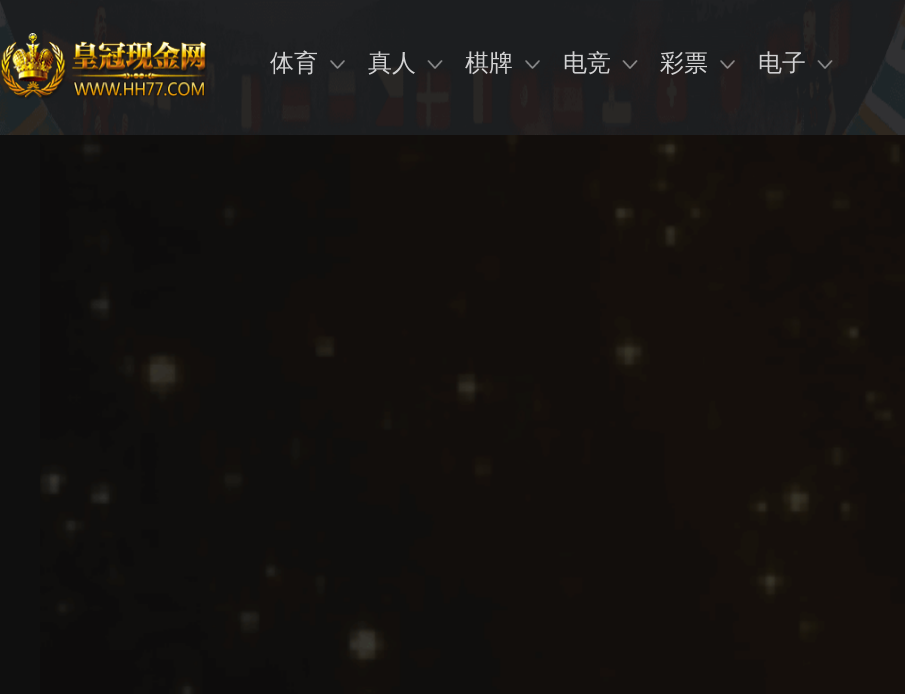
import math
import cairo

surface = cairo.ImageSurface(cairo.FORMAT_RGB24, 905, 694)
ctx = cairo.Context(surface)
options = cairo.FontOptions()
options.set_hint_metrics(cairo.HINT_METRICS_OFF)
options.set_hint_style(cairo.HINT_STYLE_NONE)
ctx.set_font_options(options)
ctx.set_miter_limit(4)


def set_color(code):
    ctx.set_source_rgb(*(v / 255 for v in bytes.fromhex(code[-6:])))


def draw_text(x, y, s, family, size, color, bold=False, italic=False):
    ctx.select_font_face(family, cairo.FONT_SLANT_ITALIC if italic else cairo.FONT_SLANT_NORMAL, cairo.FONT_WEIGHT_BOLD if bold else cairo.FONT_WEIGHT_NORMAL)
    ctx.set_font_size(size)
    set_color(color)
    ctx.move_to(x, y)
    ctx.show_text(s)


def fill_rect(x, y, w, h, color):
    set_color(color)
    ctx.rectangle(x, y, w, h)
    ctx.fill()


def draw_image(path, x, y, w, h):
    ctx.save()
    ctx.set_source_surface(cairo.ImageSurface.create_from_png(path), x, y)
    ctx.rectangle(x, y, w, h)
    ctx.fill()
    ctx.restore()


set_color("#0f0f0f")
ctx.paint()
fill_rect(0, 0, 905, 135, "#1b1b1b")
draw_image("assets/img1.png", 0, 0, 905, 135)
draw_image("assets/img2.png", 1, 33, 206, 67)
draw_text(270, 71, "体育", "WenQuanYi Zen Hei Medium", 24, "#d2d2d3")
draw_image("assets/img3.png", 330, 60, 15, 9)
draw_text(368, 71, "真人", "WenQuanYi Zen Hei Medium", 24, "#d2d2d3")
draw_image("assets/img4.png", 427, 60, 16, 9)
draw_text(465, 71, "棋牌", "WenQuanYi Zen Hei Medium", 24, "#d2d2d3")
draw_image("assets/img5.png", 525, 60, 15, 9)
draw_text(563, 71, "电竞", "WenQuanYi Zen Hei Medium", 24, "#d2d2d3")
draw_image("assets/img6.png", 622, 60, 16, 9)
draw_text(660, 71, "彩票", "WenQuanYi Zen Hei Medium", 24, "#d2d2d3")
draw_image("assets/img7.png", 720, 60, 15, 9)
draw_text(758, 71, "电子", "WenQuanYi Zen Hei Medium", 24, "#d2d2d3")
draw_image("assets/img8.png", 817, 60, 16, 9)
draw_image("assets/img9.png", 40, 135, 865, 559)
surface.write_to_png("output.png")
